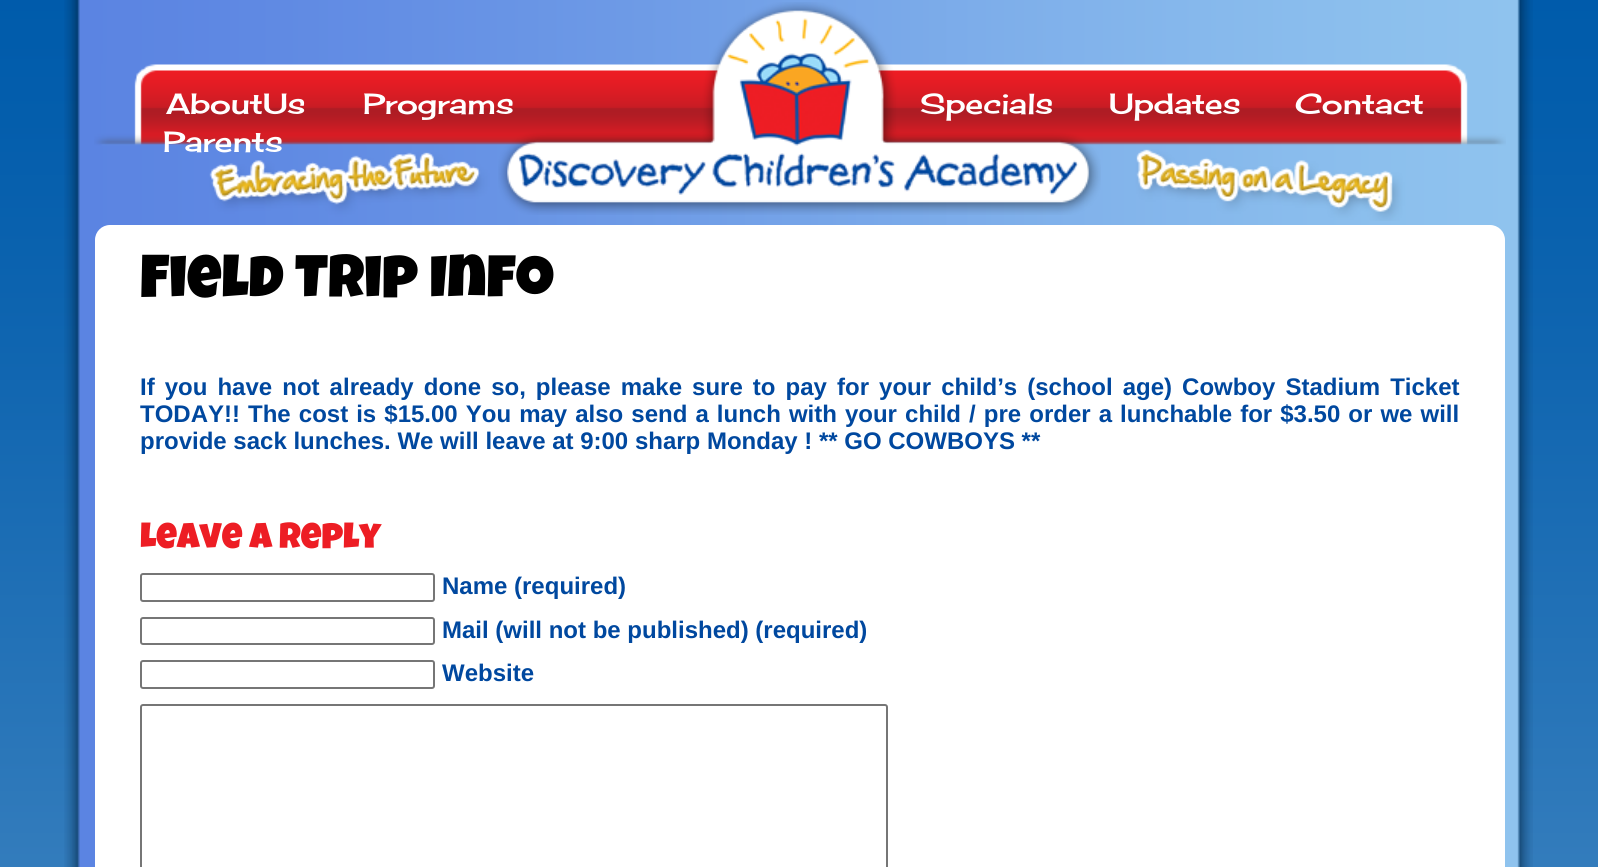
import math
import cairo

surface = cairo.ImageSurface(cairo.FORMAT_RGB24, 1598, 867)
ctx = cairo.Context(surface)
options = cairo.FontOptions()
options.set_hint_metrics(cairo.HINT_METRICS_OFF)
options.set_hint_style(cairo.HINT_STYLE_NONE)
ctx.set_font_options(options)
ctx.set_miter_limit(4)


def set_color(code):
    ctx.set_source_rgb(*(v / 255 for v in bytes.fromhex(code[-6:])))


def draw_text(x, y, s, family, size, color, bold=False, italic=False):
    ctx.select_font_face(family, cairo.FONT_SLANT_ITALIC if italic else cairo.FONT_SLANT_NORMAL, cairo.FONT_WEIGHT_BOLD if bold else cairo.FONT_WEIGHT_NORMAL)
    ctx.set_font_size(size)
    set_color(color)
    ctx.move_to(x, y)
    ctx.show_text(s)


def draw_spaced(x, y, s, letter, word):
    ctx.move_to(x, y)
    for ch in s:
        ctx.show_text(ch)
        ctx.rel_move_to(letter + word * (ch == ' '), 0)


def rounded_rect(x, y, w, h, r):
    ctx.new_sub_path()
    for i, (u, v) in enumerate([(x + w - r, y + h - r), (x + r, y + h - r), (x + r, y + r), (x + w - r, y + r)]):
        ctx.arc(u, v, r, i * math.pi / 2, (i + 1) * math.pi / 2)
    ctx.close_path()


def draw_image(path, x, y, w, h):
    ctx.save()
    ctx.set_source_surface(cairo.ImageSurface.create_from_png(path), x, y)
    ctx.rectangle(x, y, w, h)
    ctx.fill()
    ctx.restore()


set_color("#ffffff")
ctx.paint()
draw_image("assets/img1.png", 0, 0, 1598, 867)
draw_image("assets/img2.png", 64, 0, 1469, 867)
draw_image("assets/img3.png", 94, 64, 1412, 157)
draw_image("assets/img4.png", 498, 2, 603, 213)
draw_text(166, 114, "AboutUs", "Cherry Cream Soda", 28.5, "#ffffff")
draw_text(363, 114, "Programs", "Cherry Cream Soda", 28.5, "#ffffff")
draw_text(163, 152, "Parents", "Cherry Cream Soda", 28.5, "#ffffff")
draw_text(920, 114, "Specials", "Cherry Cream Soda", 28.5, "#ffffff")
draw_text(1109, 114, "Updates", "Cherry Cream Soda", 28.5, "#ffffff")
draw_text(1295, 114, "Contact", "Cherry Cream Soda", 28.5, "#ffffff")
rounded_rect(95, 225, 1410, 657, 15)
ctx.fill()
draw_text(140, 297, "Field Trip Info", "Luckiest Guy", 60, "#000000")
ctx.select_font_face("Liberation Sans", cairo.FONT_SLANT_NORMAL, cairo.FONT_WEIGHT_BOLD)
ctx.set_font_size(24)
set_color("#00489f")
draw_spaced(140, 395, "If you have not already done so, please make sure to pay for your child’s (school age) Cowboy Stadium Ticket", 0, 3.4)
draw_spaced(140, 422, "TODAY!! The cost is $15.00 You may also send a lunch with your child / pre order a lunchable for $3.50 or we will", 0, 1.4)
draw_text(140, 449, "provide sack lunches. We will leave at 9:00 sharp Monday ! ** GO COWBOYS **", "Liberation Sans", 24, "#00489f", bold=True)
draw_text(140, 548, "Leave a Reply", "Luckiest Guy", 36, "#ed1d24")
rounded_rect(141, 574, 293, 27, 2)
set_color("#767676")
ctx.stroke()
draw_text(442, 594, "Name (required)", "Liberation Sans", 24, "#00489f", bold=True)
rounded_rect(141, 618, 293, 26, 2)
set_color("#767676")
ctx.stroke()
draw_text(442, 638, "Mail (will not be published) (required)", "Liberation Sans", 24, "#00489f", bold=True)
rounded_rect(141, 661, 293, 27, 2)
set_color("#767676")
ctx.stroke()
draw_text(442, 681, "Website", "Liberation Sans", 24, "#00489f", bold=True)
rounded_rect(141, 705, 746, 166, 2)
set_color("#767676")
ctx.stroke()
surface.write_to_png("output.png")
